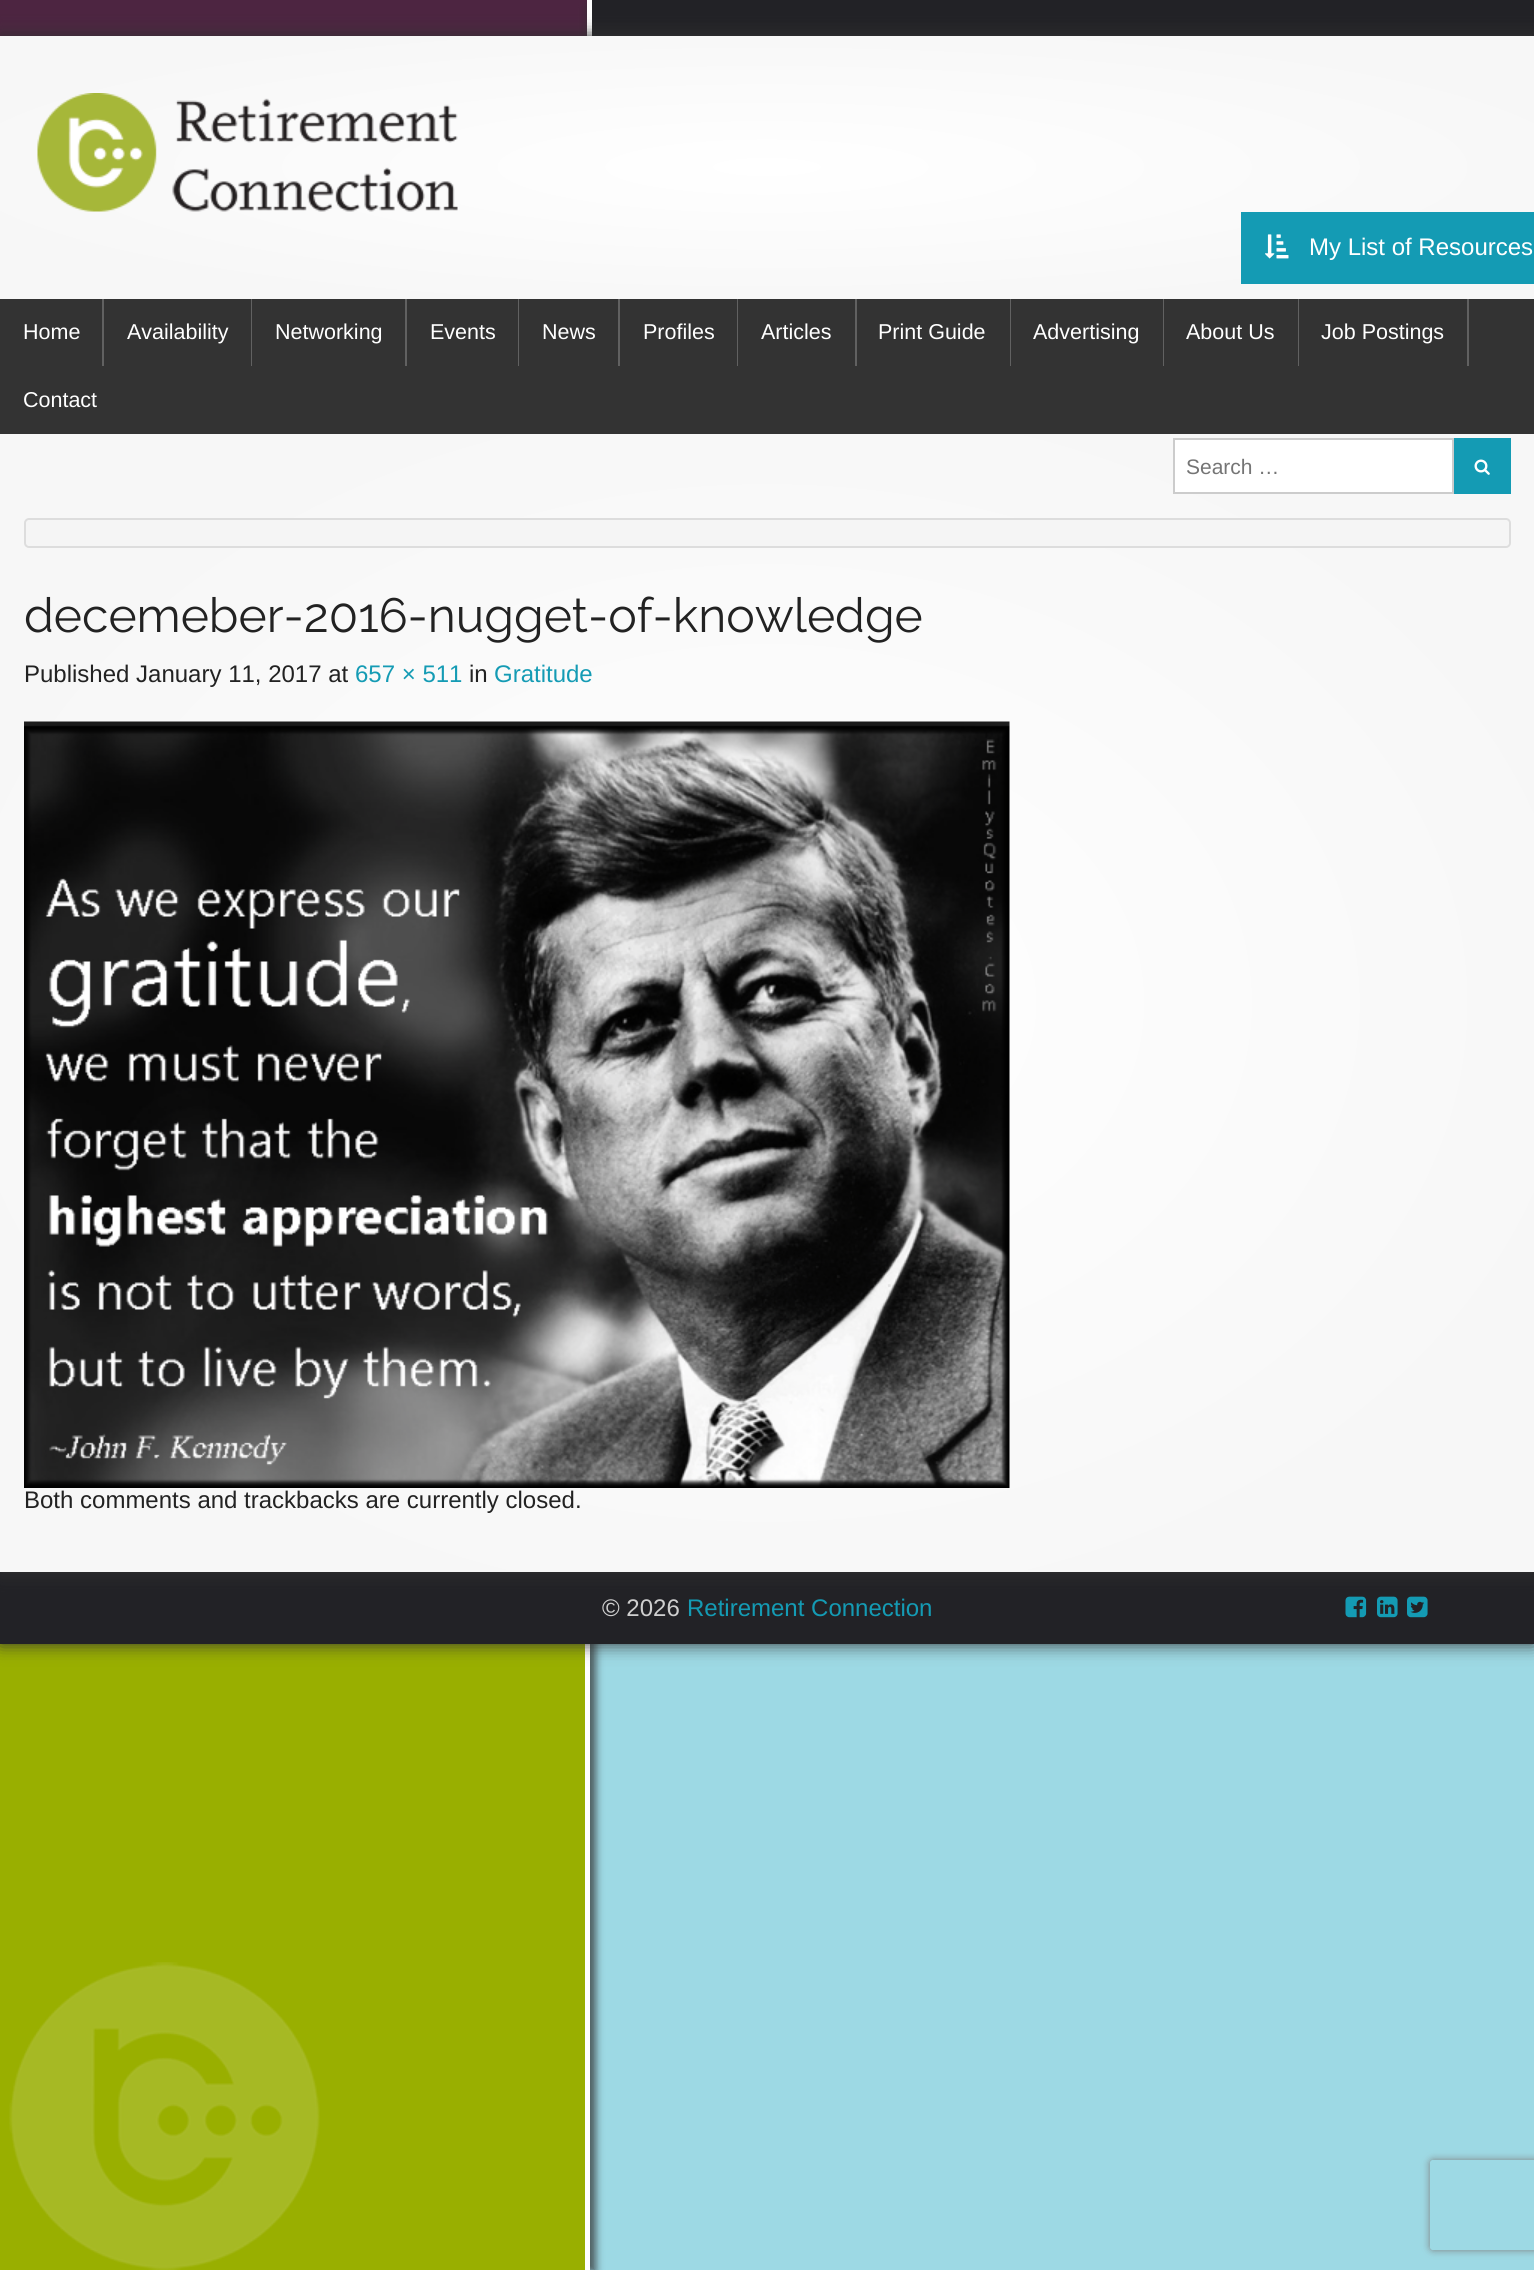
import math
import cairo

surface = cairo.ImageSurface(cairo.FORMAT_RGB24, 1534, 2270)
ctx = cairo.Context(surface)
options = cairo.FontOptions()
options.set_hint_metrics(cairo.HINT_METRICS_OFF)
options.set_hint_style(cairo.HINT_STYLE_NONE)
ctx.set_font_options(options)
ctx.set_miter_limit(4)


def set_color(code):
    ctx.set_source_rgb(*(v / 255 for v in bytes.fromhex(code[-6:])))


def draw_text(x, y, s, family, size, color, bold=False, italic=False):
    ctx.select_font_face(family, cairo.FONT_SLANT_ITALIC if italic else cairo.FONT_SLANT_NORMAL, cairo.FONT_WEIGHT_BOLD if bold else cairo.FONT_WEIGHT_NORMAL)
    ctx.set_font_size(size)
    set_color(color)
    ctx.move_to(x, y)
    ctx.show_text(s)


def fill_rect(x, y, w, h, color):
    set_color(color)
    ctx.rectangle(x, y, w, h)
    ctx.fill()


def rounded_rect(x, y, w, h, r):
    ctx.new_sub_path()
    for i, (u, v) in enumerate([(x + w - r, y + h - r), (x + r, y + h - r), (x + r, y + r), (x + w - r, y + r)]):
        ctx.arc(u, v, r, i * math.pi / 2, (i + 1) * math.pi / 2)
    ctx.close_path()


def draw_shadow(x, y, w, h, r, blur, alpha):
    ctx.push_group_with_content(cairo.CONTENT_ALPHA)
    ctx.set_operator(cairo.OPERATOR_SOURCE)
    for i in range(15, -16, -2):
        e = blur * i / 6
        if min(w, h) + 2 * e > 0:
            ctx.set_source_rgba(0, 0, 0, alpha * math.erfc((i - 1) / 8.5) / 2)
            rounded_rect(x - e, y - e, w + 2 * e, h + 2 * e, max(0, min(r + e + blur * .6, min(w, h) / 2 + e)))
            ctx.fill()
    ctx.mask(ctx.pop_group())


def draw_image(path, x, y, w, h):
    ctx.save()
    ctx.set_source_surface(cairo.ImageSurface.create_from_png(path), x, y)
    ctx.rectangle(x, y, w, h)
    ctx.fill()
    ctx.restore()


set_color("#9dd9e4")
ctx.paint()
fill_rect(0, 0, 587, 36, "#4d2541")
set_color("#323232")
draw_shadow(587, 6, 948, 578, 0, 4, 0.75)
fill_rect(592, 0, 942, 36, "#222226")
fill_rect(587, 0, 5, 36, "#ffffff")
set_color("#323232")
draw_shadow(0, 36, 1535, 263, 0, 9, 1)
gradient = cairo.RadialGradient(0, 0, 0, 0, 0, 1)
gradient.set_matrix(cairo.Matrix(1 / 1085, 0, 0, 1 / 186, -1 * 767 / 1085, -1 * 167 / 186))
gradient.add_color_stop_rgba(0, 1, 1, 1, 1)
gradient.add_color_stop_rgba(0.78, 0.969, 0.969, 0.969, 1)
gradient.add_color_stop_rgba(1, 0.969, 0.969, 0.969, 1)
ctx.set_source(gradient)
ctx.rectangle(0, 36, 1534, 263)
ctx.fill()
draw_image("assets/img1.png", 37, 93, 421, 119)
fill_rect(1241, 212, 293, 72, "#149bb4")
draw_image("assets/img2.png", 1265, 234, 24, 25)
draw_text(1309, 255, "My List of Resources", "Liberation Sans", 24, "#ffffff")
set_color("#323232")
draw_shadow(6, 578, 590, 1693, 0, 4, 0.75)
fill_rect(0, 1644, 585, 626, "#99af00")
fill_rect(585, 1644, 5, 626, "#ffffff")
set_color("#323232")
draw_shadow(0, 1572, 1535, 72, 0, 9, 1)
fill_rect(0, 1572, 1534, 72, "#222226")
draw_image("assets/img6.png", 1345, 1596, 22, 22)
draw_image("assets/img7.png", 1377, 1596, 21, 22)
draw_image("assets/img8.png", 1407, 1596, 21, 22)
set_color("#323232")
draw_shadow(0, 434, 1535, 1138, 0, 9, 1)
fill_rect(0, 299, 1534, 135, "#333333")
draw_text(23, 339, "Home", "Liberation Sans", 21.5, "#ffffff")
fill_rect(102, 299, 2, 67, "#616161")
draw_text(127, 339, "Availability", "Liberation Sans", 21.5, "#ffffff")
fill_rect(251, 299, 1, 67, "#616161")
draw_text(275, 339, "Networking", "Liberation Sans", 21.5, "#ffffff")
fill_rect(405, 299, 2, 67, "#616161")
draw_text(430, 339, "Events", "Liberation Sans", 21.5, "#ffffff")
fill_rect(518, 299, 1, 67, "#616161")
draw_text(542, 339, "News", "Liberation Sans", 21.5, "#ffffff")
fill_rect(618, 299, 2, 67, "#616161")
draw_text(643, 339, "Profiles", "Liberation Sans", 21.5, "#ffffff")
fill_rect(737, 299, 1, 67, "#616161")
draw_text(761, 339, "Articles", "Liberation Sans", 21.5, "#ffffff")
fill_rect(855, 299, 2, 67, "#616161")
draw_text(878, 339, "Print Guide", "Liberation Sans", 21.5, "#ffffff")
fill_rect(1010, 299, 1, 67, "#616161")
draw_text(1033, 339, "Advertising", "Liberation Sans", 21.5, "#ffffff")
fill_rect(1163, 299, 1, 67, "#616161")
draw_text(1186, 339, "About Us", "Liberation Sans", 21.5, "#ffffff")
fill_rect(1298, 299, 1, 67, "#616161")
draw_text(1321, 339, "Job Postings", "Liberation Sans", 21.5, "#ffffff")
fill_rect(1467, 299, 2, 67, "#616161")
draw_text(23, 407, "Contact", "Liberation Sans", 21.5, "#ffffff")
gradient = cairo.RadialGradient(0, 0, 0, 0, 0, 1)
gradient.set_matrix(cairo.Matrix(1 / 1085, 0, 0, 1 / 805, -1 * 767 / 1085, -1 * 1003 / 805))
gradient.add_color_stop_rgba(0, 1, 1, 1, 1)
gradient.add_color_stop_rgba(0.78, 0.969, 0.969, 0.969, 1)
gradient.add_color_stop_rgba(1, 0.969, 0.969, 0.969, 1)
ctx.set_source(gradient)
ctx.rectangle(0, 434, 1534, 1138)
ctx.fill()
set_color("#ffffff")
ctx.rectangle(1174, 439, 279, 54)
ctx.fill_preserve()
set_color("#cccccc")
ctx.stroke()
draw_text(1186, 474, "Search …", "Liberation Sans", 21, "#757575")
fill_rect(1454, 438, 57, 56, "#149bb4")
draw_image("assets/img3.png", 1474, 459, 16, 16)
set_color("#f5f5f5")
rounded_rect(25, 519, 1485, 28, 4)
ctx.fill_preserve()
set_color("#dddddd")
ctx.stroke()
draw_text(24, 632, "decemeber-2016-nugget-of-knowledge", "Raleway Thin", 48, "#222222")
draw_text(24, 682, "Published January 11, 2017 at", "Liberation Sans", 24, "#222222")
draw_text(355, 682, "657 × 511", "Liberation Sans", 24, "#149bb4")
draw_text(469, 682, "in", "Liberation Sans", 24, "#222222")
draw_text(494, 682, "Gratitude", "Liberation Sans", 24, "#149bb4")
draw_image("assets/img4.png", 24, 721, 986, 767)
draw_text(24, 1508, "Both comments and trackbacks are currently closed.", "Liberation Sans", 24, "#222222")
draw_image("assets/img5.png", 9, 1962, 311, 308)
draw_text(602, 1616, "© 2026", "Liberation Sans", 24, "#cfcfcf")
draw_text(687, 1616, "Retirement Connection", "Liberation Sans", 24, "#149bb4")
ctx.save()
ctx.set_fill_rule(cairo.FILL_RULE_EVEN_ODD)
ctx.new_path()
ctx.move_to(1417, 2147)
ctx.line_to(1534, 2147)
ctx.line_to(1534, 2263)
ctx.line_to(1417, 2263)
ctx.close_path()
ctx.move_to(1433, 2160)
ctx.line_to(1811, 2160)
ctx.curve_to(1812.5, 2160, 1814, 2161.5, 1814, 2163)
ctx.line_to(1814, 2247)
ctx.curve_to(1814, 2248.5, 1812.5, 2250, 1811, 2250)
ctx.line_to(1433, 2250)
ctx.curve_to(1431.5, 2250, 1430, 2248.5, 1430, 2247)
ctx.line_to(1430, 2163)
ctx.curve_to(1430, 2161.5, 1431.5, 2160, 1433, 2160)
ctx.close_path()
ctx.clip()
set_color("#808080")
draw_shadow(1430, 2160, 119, 90, 3, 4, 1)
ctx.restore()
surface.write_to_png("output.png")
